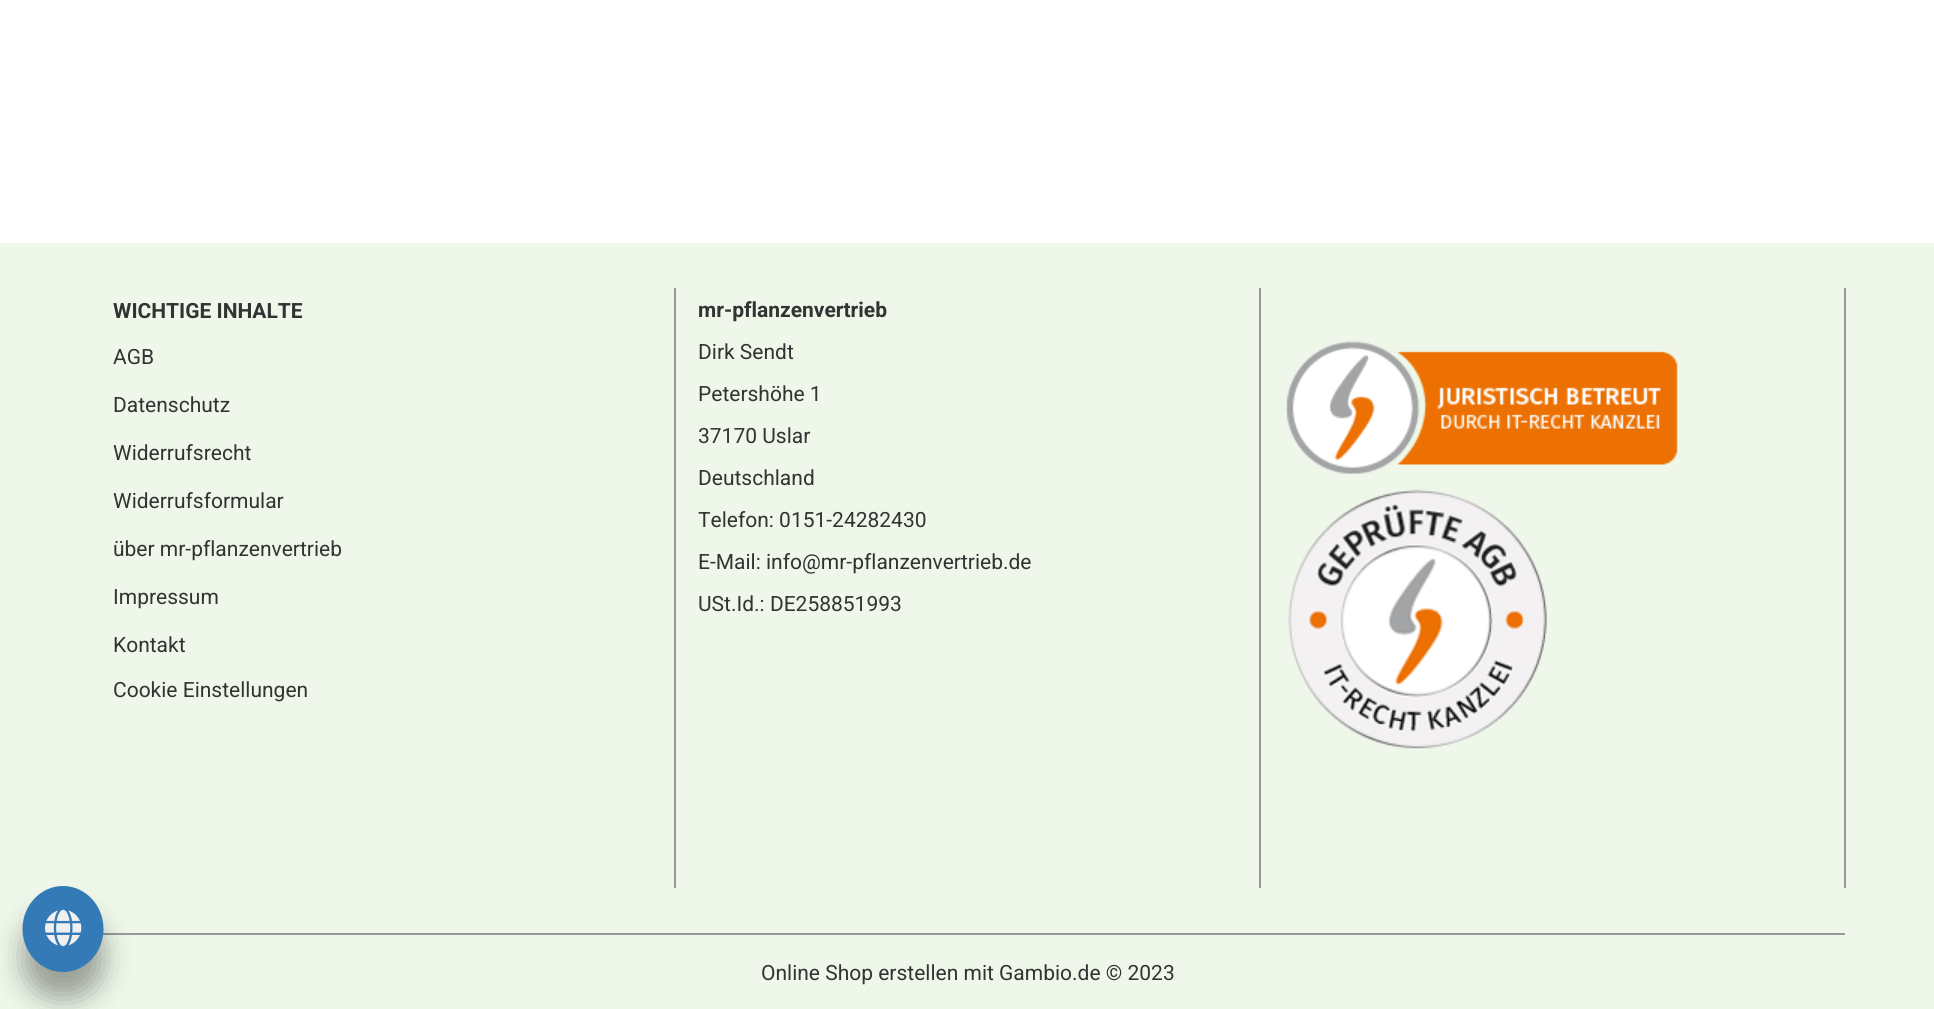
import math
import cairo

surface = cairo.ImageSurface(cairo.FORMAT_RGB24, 1934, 1009)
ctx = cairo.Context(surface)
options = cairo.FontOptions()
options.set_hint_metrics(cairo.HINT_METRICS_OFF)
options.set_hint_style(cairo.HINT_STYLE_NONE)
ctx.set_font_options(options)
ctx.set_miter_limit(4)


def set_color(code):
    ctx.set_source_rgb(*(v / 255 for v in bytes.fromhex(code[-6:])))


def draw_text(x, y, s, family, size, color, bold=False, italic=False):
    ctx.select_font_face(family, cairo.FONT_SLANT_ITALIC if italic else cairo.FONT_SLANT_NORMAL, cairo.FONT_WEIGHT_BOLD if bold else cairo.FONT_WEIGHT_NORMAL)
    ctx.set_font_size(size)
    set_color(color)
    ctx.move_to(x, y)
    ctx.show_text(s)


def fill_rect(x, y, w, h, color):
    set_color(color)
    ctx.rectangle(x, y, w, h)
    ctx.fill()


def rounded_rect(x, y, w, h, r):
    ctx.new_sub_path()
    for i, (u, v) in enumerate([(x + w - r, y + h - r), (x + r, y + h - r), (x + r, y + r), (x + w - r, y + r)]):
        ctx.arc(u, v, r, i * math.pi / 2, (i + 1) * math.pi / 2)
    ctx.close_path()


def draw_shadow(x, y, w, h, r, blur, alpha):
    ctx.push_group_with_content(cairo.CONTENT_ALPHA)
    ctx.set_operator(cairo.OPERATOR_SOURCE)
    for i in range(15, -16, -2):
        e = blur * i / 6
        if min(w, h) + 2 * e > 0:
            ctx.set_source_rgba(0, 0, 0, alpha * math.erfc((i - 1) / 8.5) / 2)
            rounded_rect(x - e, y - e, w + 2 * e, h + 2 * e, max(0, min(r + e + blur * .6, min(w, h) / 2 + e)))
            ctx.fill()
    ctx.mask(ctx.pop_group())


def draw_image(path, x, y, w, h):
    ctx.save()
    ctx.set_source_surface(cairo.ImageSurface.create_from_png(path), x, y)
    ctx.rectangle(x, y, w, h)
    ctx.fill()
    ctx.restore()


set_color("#ffffff")
ctx.paint()
fill_rect(0, 243, 1934, 766, "#eef7e9")
fill_rect(103, 933, 1742, 2, "#999999")
set_color("#000000")
draw_shadow(23, 914, 81, 85, 40.5, 13.5, 0.35)
set_color("#337ab7")
ctx.new_path()
ctx.move_to(63, 886)
ctx.curve_to(85.5, 886, 103.5, 905.5, 103.5, 929)
ctx.curve_to(103.5, 952.5, 85.5, 972, 63, 972)
ctx.curve_to(40.5, 972, 22.5, 952.5, 22.5, 929)
ctx.curve_to(22.5, 905.5, 40.5, 886, 63, 886)
ctx.close_path()
ctx.fill()
draw_image("assets/img1.png", 45, 909, 37, 38)
fill_rect(674, 288, 2, 600, "#999999")
draw_text(113, 318, "WICHTIGE INHALTE", "Roboto", 21, "#333333", bold=True)
draw_text(113, 364, "AGB", "Roboto", 21, "#333333")
draw_text(113, 412, "Datenschutz", "Roboto", 21, "#333333")
draw_text(113, 460, "Widerrufsrecht", "Roboto", 21, "#333333")
draw_text(113, 508, "Widerrufsformular", "Roboto", 21, "#333333")
draw_text(113, 556, "über mr-pflanzenvertrieb", "Roboto", 21, "#333333")
draw_text(113, 604, "Impressum", "Roboto", 21, "#333333")
draw_text(113, 652, "Kontakt", "Roboto", 21, "#333333")
draw_text(113, 697, "Cookie Einstellungen", "Roboto", 21, "#333333")
fill_rect(1259, 288, 2, 600, "#999999")
draw_text(698, 317, "mr-pflanzenvertrieb", "Roboto", 21, "#333333", bold=True)
draw_text(698, 359, "Dirk Sendt", "Roboto", 21, "#333333")
draw_text(698, 401, "Petershöhe 1", "Roboto", 21, "#333333")
draw_text(698, 443, "37170 Uslar", "Roboto", 21, "#333333")
draw_text(698, 485, "Deutschland", "Roboto", 21, "#333333")
draw_text(698, 527, "Telefon: 0151-24282430", "Roboto", 21, "#333333")
draw_text(698, 569, "E-Mail: info@mr-pflanzenvertrieb.de", "Roboto", 21, "#333333")
draw_text(698, 611, "USt.Id.: DE258851993", "Roboto", 21, "#333333")
fill_rect(1844, 288, 2, 600, "#999999")
draw_image("assets/img2.png", 1285, 341, 393, 133)
draw_image("assets/img3.png", 1288, 489, 259, 260)
draw_text(761, 980, "Online Shop erstellen mit Gambio.de © 2023", "Roboto", 21, "#333333")
surface.write_to_png("output.png")
